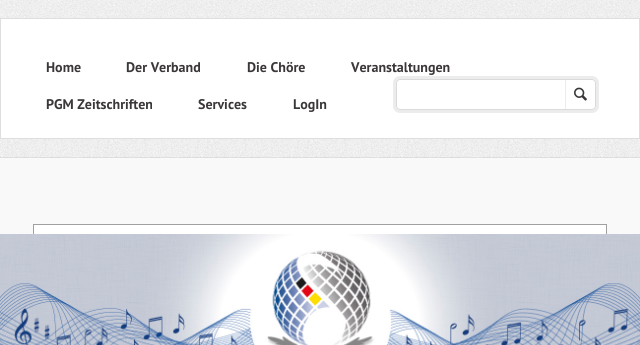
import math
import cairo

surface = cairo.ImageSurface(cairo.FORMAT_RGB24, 640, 345)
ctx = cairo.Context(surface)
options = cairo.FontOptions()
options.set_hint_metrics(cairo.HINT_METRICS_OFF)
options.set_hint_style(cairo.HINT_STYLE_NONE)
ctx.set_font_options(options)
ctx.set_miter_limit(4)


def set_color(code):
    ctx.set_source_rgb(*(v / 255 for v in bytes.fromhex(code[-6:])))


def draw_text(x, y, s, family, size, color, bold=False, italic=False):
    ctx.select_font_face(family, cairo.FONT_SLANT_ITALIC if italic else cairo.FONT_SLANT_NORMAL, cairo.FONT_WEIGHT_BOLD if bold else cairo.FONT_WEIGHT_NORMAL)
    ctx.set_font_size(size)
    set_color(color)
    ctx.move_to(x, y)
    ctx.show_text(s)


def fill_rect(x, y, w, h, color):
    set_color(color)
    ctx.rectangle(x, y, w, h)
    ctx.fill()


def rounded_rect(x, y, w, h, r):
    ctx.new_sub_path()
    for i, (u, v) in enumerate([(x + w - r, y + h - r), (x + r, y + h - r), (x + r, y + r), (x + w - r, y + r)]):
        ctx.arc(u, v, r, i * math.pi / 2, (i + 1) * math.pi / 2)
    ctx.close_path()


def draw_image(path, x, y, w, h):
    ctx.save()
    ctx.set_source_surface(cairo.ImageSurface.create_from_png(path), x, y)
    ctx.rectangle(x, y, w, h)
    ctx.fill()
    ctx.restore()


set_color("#ffffff")
ctx.paint()
draw_image("assets/img1.png", 0, 0, 640, 158)
set_color("#ffffff")
ctx.rectangle(0.5, 18.5, 639, 120)
ctx.fill_preserve()
set_color("#dedede")
ctx.set_line_width(1)
ctx.stroke()
draw_text(46, 72, "Home", "PT Sans", 14, "#3b3737", bold=True)
draw_text(126, 72, "Der Verband", "PT Sans", 14, "#3b3737", bold=True)
draw_text(247, 72, "Die Chöre", "PT Sans", 14, "#3b3737", bold=True)
draw_text(351, 72, "Veranstaltungen", "PT Sans", 14, "#3b3737", bold=True)
draw_text(46, 109, "PGM Zeitschriften", "PT Sans", 14, "#3b3737", bold=True)
draw_text(198, 109, "Services", "PT Sans", 14, "#3b3737", bold=True)
draw_text(293, 109, "LogIn", "PT Sans", 14, "#3b3737", bold=True)
rounded_rect(394.5, 77.5, 203, 34, 5.5)
set_color("#ececec")
ctx.set_line_width(3)
ctx.stroke()
set_color("#ffffff")
rounded_rect(396.5, 79.5, 199, 30, 3.5)
ctx.fill_preserve()
set_color("#dadada")
ctx.set_line_width(1)
ctx.stroke()
fill_rect(565, 80, 1, 29, "#ececec")
draw_image("assets/img2.png", 574, 87, 13, 14)
fill_rect(0, 158, 640, 76, "#f9f9f9")
ctx.set_source_rgba(0, 0, 0, 0.07)
ctx.rectangle(0, 157, 640, 1)
ctx.fill()
ctx.rectangle(38, 229, 564, 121)
set_color("#a0a0a0")
ctx.set_line_width(10)
ctx.stroke()
ctx.rectangle(38.5, 229.5, 563, 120)
set_color("#ffffff")
ctx.set_line_width(9)
ctx.stroke()
draw_image("assets/img3.png", 0, 234, 640, 111)
surface.write_to_png("output.png")
